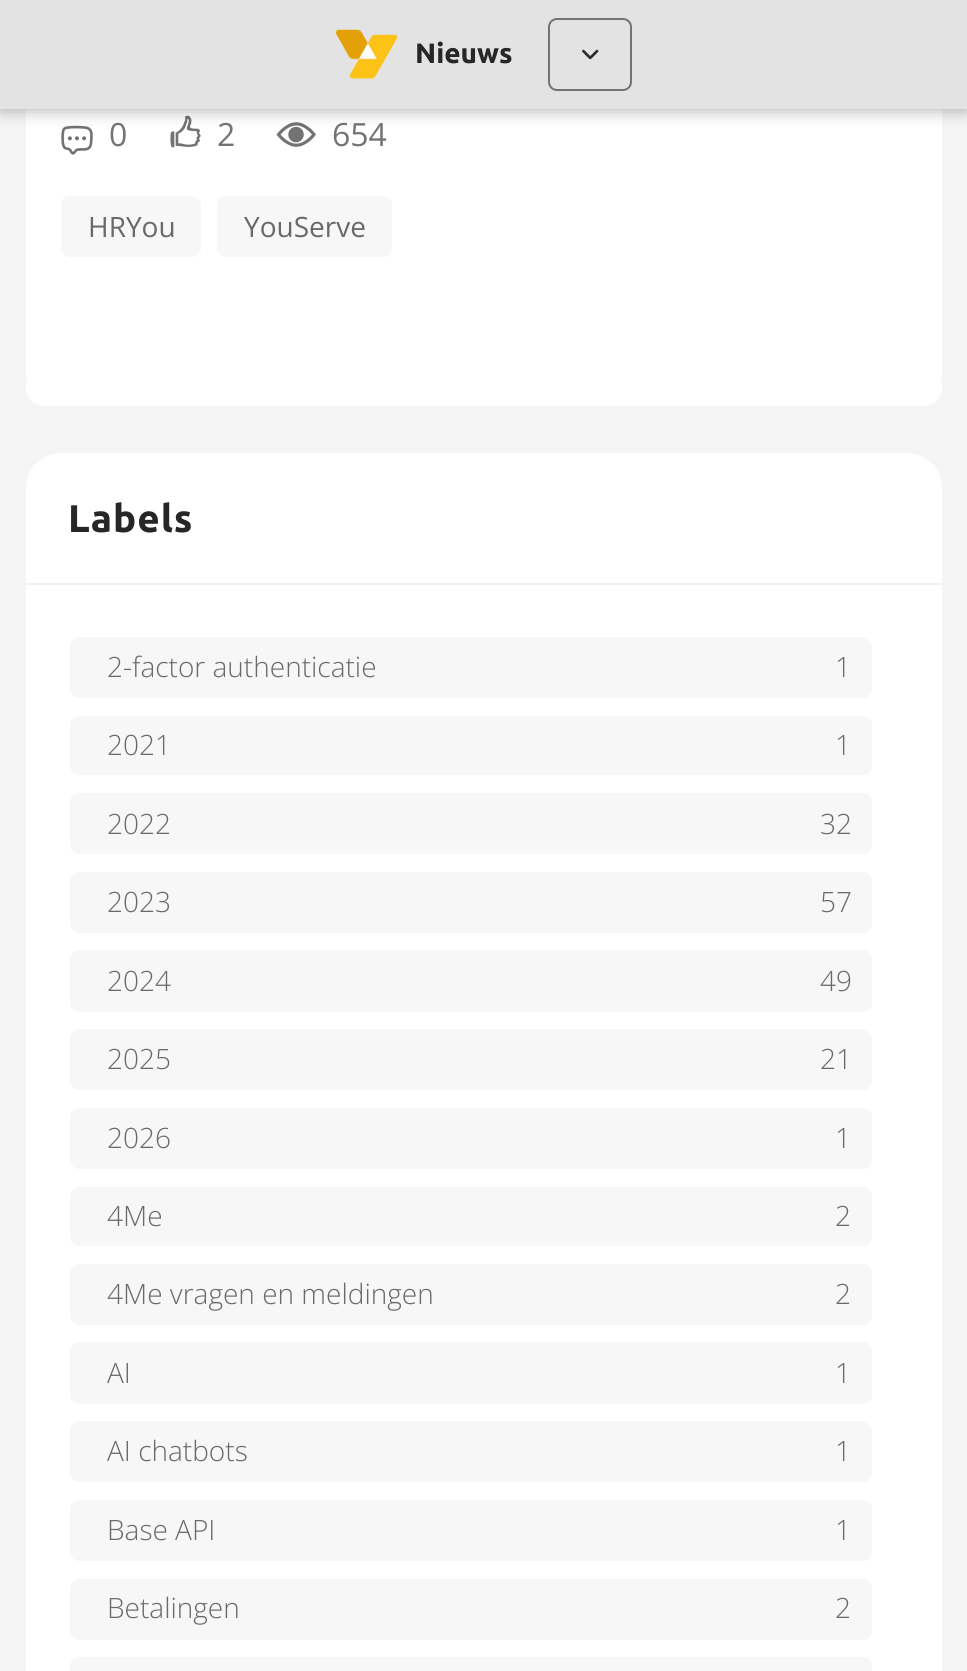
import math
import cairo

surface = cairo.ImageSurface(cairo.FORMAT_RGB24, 967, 1671)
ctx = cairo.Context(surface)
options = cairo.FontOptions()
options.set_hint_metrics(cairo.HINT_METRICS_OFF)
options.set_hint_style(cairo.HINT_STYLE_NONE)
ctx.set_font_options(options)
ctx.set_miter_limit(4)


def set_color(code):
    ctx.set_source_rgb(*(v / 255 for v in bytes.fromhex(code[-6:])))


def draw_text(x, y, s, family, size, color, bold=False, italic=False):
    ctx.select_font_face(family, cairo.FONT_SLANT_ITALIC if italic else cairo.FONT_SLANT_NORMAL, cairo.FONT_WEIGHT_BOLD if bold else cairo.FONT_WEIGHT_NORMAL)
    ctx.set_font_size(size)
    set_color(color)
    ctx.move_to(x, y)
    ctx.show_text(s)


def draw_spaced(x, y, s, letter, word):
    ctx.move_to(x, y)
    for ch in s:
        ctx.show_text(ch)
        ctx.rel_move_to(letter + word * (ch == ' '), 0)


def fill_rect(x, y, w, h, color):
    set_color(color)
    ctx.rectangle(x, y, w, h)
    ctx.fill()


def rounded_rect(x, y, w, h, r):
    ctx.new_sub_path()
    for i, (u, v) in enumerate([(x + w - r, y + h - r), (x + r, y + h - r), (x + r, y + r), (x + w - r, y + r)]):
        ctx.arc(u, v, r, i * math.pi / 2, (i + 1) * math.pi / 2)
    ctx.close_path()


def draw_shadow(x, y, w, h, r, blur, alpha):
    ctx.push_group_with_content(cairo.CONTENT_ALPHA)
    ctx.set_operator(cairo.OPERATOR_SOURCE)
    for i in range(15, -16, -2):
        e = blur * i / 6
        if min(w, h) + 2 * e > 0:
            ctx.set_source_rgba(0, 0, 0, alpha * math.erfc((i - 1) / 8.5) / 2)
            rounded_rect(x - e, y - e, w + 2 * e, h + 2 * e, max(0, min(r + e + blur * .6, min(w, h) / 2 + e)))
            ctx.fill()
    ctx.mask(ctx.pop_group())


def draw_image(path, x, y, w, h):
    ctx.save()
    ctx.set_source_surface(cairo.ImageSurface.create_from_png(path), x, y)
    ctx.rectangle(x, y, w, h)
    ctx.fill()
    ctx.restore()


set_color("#f5f5f5")
ctx.paint()
set_color("#ffffff")
rounded_rect(26, -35, 916, 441, 35)
ctx.fill()
draw_image("assets/img3.png", 61, 125, 32, 30)
draw_image("assets/img4.png", 170, 115, 31, 33)
draw_image("assets/img5.png", 276, 122, 40, 25)
set_color("#000000")
draw_shadow(0, 0, 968, 109, 0, 9, 0.35)
fill_rect(0, 0, 967, 109, "#e3e3e3")
draw_image("assets/img1.png", 336, 29, 62, 50)
draw_text(415, 63, "Nieuws", "Ubuntu", 28, "#252626", bold=True)
rounded_rect(549, 19, 82, 71, 8)
set_color("#737373")
ctx.stroke()
draw_image("assets/img2.png", 582, 49, 17, 11)
draw_text(109, 146, "0", "Open Sans", 32, "#737373")
draw_text(217, 146, "2", "Open Sans", 32, "#737373")
draw_text(332, 146, "654", "Open Sans", 32, "#737373")
set_color("#f7f7f7")
rounded_rect(61, 196, 140, 61, 9)
ctx.fill()
draw_text(88, 237, "HRYou", "Open Sans", 28, "#696969")
set_color("#f7f7f7")
rounded_rect(217, 196, 175, 61, 9)
ctx.fill()
draw_text(244, 237, "YouServe", "Open Sans", 28, "#696969")
set_color("#ffffff")
rounded_rect(26, 371, 916, 35, 17.5)
ctx.fill()
rounded_rect(26, 453, 916, 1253, 35)
ctx.fill()
fill_rect(26, 583, 916, 2, "#f0f0f0")
ctx.select_font_face("Ubuntu", cairo.FONT_SLANT_NORMAL, cairo.FONT_WEIGHT_BOLD)
ctx.set_font_size(38.5)
set_color("#252626")
draw_spaced(68, 532, "Labels", 1, 0)
set_color("#f7f7f7")
rounded_rect(70, 637, 802, 61, 9)
ctx.fill()
draw_text(107, 677, "2-factor authenticatie", "Open Sans Light", 28, "#696969")
draw_text(835, 677, "1", "Open Sans Light", 28, "#696969")
set_color("#f7f7f7")
rounded_rect(70, 716, 802, 59, 9)
ctx.fill()
draw_text(107, 755, "2021", "Open Sans Light", 28, "#696969")
draw_text(835, 755, "1", "Open Sans Light", 28, "#696969")
set_color("#f7f7f7")
rounded_rect(70, 793, 802, 61, 9)
ctx.fill()
draw_text(107, 834, "2022", "Open Sans Light", 28, "#696969")
draw_text(820, 834, "32", "Open Sans Light", 28, "#696969")
set_color("#f7f7f7")
rounded_rect(70, 872, 802, 61, 9)
ctx.fill()
draw_text(107, 912, "2023", "Open Sans Light", 28, "#696969")
draw_text(820, 912, "57", "Open Sans Light", 28, "#696969")
set_color("#f7f7f7")
rounded_rect(70, 950, 802, 62, 9)
ctx.fill()
draw_text(107, 991, "2024", "Open Sans Light", 28, "#696969")
draw_text(820, 991, "49", "Open Sans Light", 28, "#696969")
set_color("#f7f7f7")
rounded_rect(70, 1029, 802, 61, 9)
ctx.fill()
draw_text(107, 1069, "2025", "Open Sans Light", 28, "#696969")
draw_text(820, 1069, "21", "Open Sans Light", 28, "#696969")
set_color("#f7f7f7")
rounded_rect(70, 1108, 802, 61, 9)
ctx.fill()
draw_text(107, 1148, "2026", "Open Sans Light", 28, "#696969")
draw_text(835, 1148, "1", "Open Sans Light", 28, "#696969")
set_color("#f7f7f7")
rounded_rect(70, 1187, 802, 59, 9)
ctx.fill()
draw_text(107, 1226, "4Me", "Open Sans Light", 28, "#696969")
draw_text(835, 1226, "2", "Open Sans Light", 28, "#696969")
set_color("#f7f7f7")
rounded_rect(70, 1264, 802, 61, 9)
ctx.fill()
draw_text(107, 1304, "4Me vragen en meldingen", "Open Sans Light", 28, "#696969")
draw_text(835, 1304, "2", "Open Sans Light", 28, "#696969")
set_color("#f7f7f7")
rounded_rect(70, 1342, 802, 62, 9)
ctx.fill()
draw_text(107, 1383, "AI", "Open Sans Light", 28, "#696969")
draw_text(835, 1383, "1", "Open Sans Light", 28, "#696969")
set_color("#f7f7f7")
rounded_rect(70, 1421, 802, 61, 9)
ctx.fill()
draw_text(107, 1461, "AI chatbots", "Open Sans Light", 28, "#696969")
draw_text(835, 1461, "1", "Open Sans Light", 28, "#696969")
set_color("#f7f7f7")
rounded_rect(70, 1500, 802, 61, 9)
ctx.fill()
draw_text(107, 1540, "Base API", "Open Sans Light", 28, "#696969")
draw_text(835, 1540, "1", "Open Sans Light", 28, "#696969")
set_color("#f7f7f7")
rounded_rect(70, 1579, 802, 61, 9)
ctx.fill()
draw_text(107, 1618, "Betalingen", "Open Sans Light", 28, "#696969")
draw_text(835, 1618, "2", "Open Sans Light", 28, "#696969")
set_color("#f7f7f7")
rounded_rect(70, 1657, 802, 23, 9)
ctx.fill()
surface.write_to_png("output.png")
